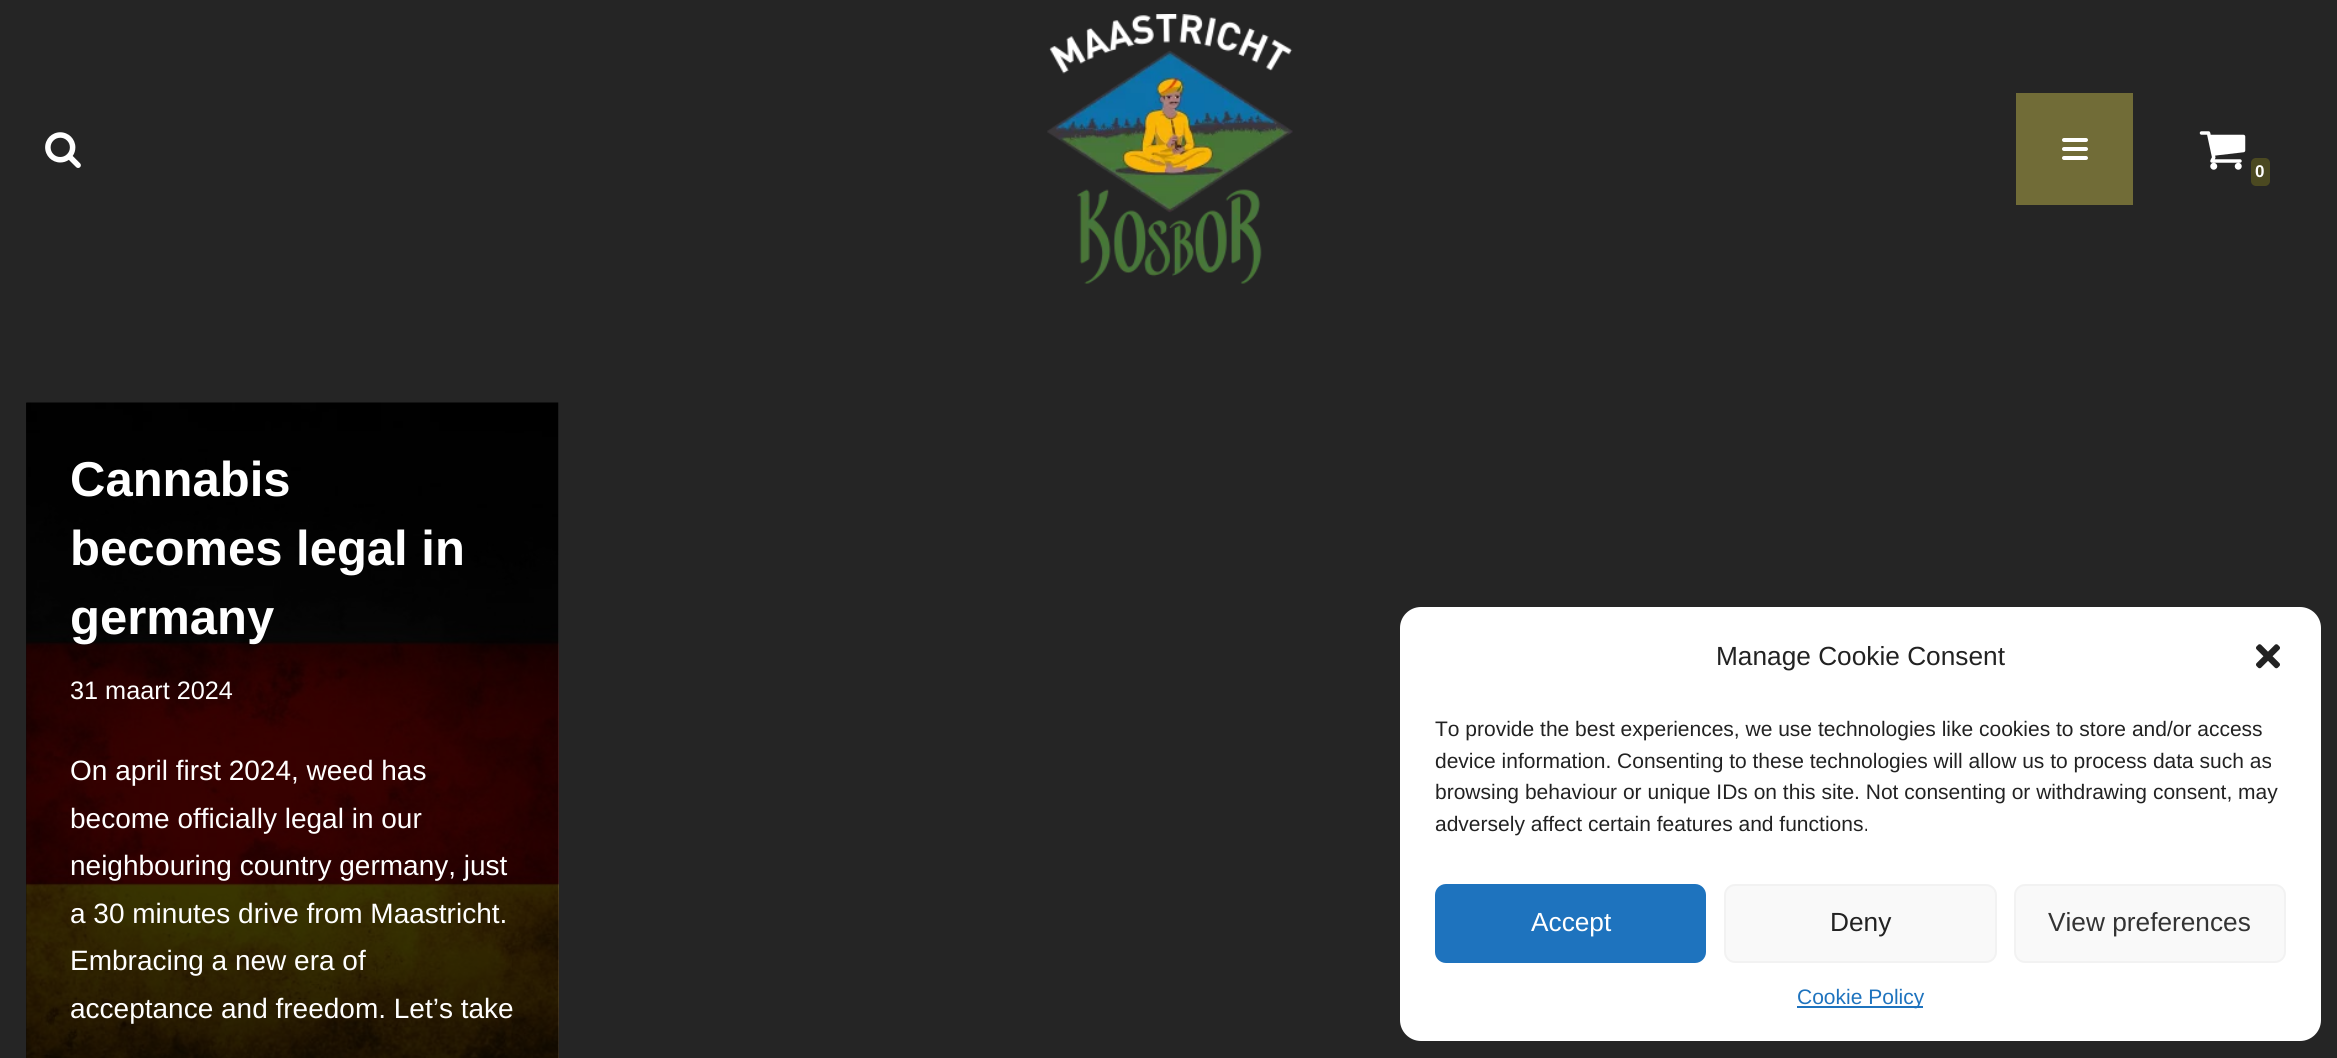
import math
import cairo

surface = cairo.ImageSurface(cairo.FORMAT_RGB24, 2337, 1058)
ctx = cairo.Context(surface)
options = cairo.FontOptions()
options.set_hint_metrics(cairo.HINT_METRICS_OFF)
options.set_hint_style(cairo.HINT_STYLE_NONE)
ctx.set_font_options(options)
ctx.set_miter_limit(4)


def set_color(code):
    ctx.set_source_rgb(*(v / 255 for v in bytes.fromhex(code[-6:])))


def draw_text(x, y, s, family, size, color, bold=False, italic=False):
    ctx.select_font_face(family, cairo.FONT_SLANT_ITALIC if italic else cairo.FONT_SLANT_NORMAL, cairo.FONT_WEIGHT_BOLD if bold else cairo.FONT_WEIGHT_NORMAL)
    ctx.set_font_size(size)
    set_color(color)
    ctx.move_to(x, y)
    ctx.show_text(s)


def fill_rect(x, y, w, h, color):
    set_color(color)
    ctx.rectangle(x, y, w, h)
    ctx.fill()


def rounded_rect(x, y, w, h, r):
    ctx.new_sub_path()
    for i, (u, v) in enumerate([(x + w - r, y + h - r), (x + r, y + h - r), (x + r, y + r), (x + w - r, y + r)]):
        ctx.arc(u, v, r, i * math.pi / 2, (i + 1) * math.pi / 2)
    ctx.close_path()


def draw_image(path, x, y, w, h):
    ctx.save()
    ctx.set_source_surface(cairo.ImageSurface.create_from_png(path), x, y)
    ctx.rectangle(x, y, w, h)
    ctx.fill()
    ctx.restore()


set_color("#252525")
ctx.paint()
draw_image("assets/img1.png", 45, 132, 36, 36)
draw_image("assets/img2.png", 1047, 14, 246, 270)
fill_rect(2016, 93, 117, 112, "#716c37")
set_color("#ffffff")
rounded_rect(2062, 147, 26, 4, 2)
ctx.fill()
rounded_rect(2062, 138, 26, 4, 2)
ctx.fill()
rounded_rect(2062, 156, 26, 4, 2)
ctx.fill()
draw_image("assets/img3.png", 2199, 131, 47, 39)
set_color("#4b4921")
rounded_rect(2251, 158, 19, 28, 5)
ctx.fill()
draw_text(2255, 177, "0", "Liberation Sans", 17, "#ffffff", bold=True)
draw_image("assets/img4.png", 26, 402, 533, 656)
ctx.set_source_rgba(0, 0, 0, 0.75)
ctx.rectangle(26, 403, 532, 655)
ctx.fill()
draw_text(70, 496, "Cannabis", "Liberation Sans", 49, "#ffffff", bold=True)
draw_text(70, 565, "becomes legal in", "Liberation Sans", 49, "#ffffff", bold=True)
draw_text(70, 634, "germany", "Liberation Sans", 49, "#ffffff", bold=True)
draw_text(70, 699, "31 maart 2024", "Liberation Sans", 25.25, "#ffffff")
draw_text(70, 780, "On april first 2024, weed has", "Liberation Sans", 28, "#ffffff")
draw_text(70, 828, "become officially legal in our", "Liberation Sans", 28, "#ffffff")
draw_text(70, 875, "neighbouring country germany, just", "Liberation Sans", 28, "#ffffff")
draw_text(70, 923, "a 30 minutes drive from Maastricht.", "Liberation Sans", 28, "#ffffff")
draw_text(70, 970, "Embracing a new era of", "Liberation Sans", 28, "#ffffff")
draw_text(70, 1018, "acceptance and freedom. Let’s take", "Liberation Sans", 28, "#ffffff")
rounded_rect(1400, 607, 921, 434, 21)
ctx.fill()
draw_text(1716, 665, "Manage Cookie Consent", "Liberation Sans", 26.25, "#222222")
draw_image("assets/img5.png", 2256, 644, 24, 25)
draw_text(1435, 736, "To provide the best experiences, we use technologies like cookies to store and/or access", "Liberation Sans", 21, "#222222")
draw_text(1435, 768, "device information. Consenting to these technologies will allow us to process data such as", "Liberation Sans", 21, "#222222")
draw_text(1435, 799, "browsing behaviour or unique IDs on this site. Not consenting or withdrawing consent, may", "Liberation Sans", 21, "#222222")
draw_text(1435, 831, "adversely affect certain features and functions.", "Liberation Sans", 21, "#222222")
set_color("#1e73be")
rounded_rect(1436, 885, 269, 77, 10)
ctx.fill_preserve()
ctx.stroke()
draw_text(1531, 931, "Accept", "Liberation Sans", 26.25, "#ffffff")
set_color("#f9f9f9")
rounded_rect(1725, 885, 271, 77, 10)
ctx.fill_preserve()
set_color("#f2f2f2")
ctx.stroke()
draw_text(1830, 931, "Deny", "Liberation Sans", 26.25, "#222222")
set_color("#f9f9f9")
rounded_rect(2015, 885, 270, 77, 10)
ctx.fill_preserve()
set_color("#f2f2f2")
ctx.stroke()
draw_text(2048, 931, "View preferences", "Liberation Sans", 26.25, "#333333")
fill_rect(1797, 1006, 126, 2, "#1e73be")
draw_text(1797, 1004, "Cookie Policy", "Liberation Sans", 21, "#1e73be")
surface.write_to_png("output.png")
